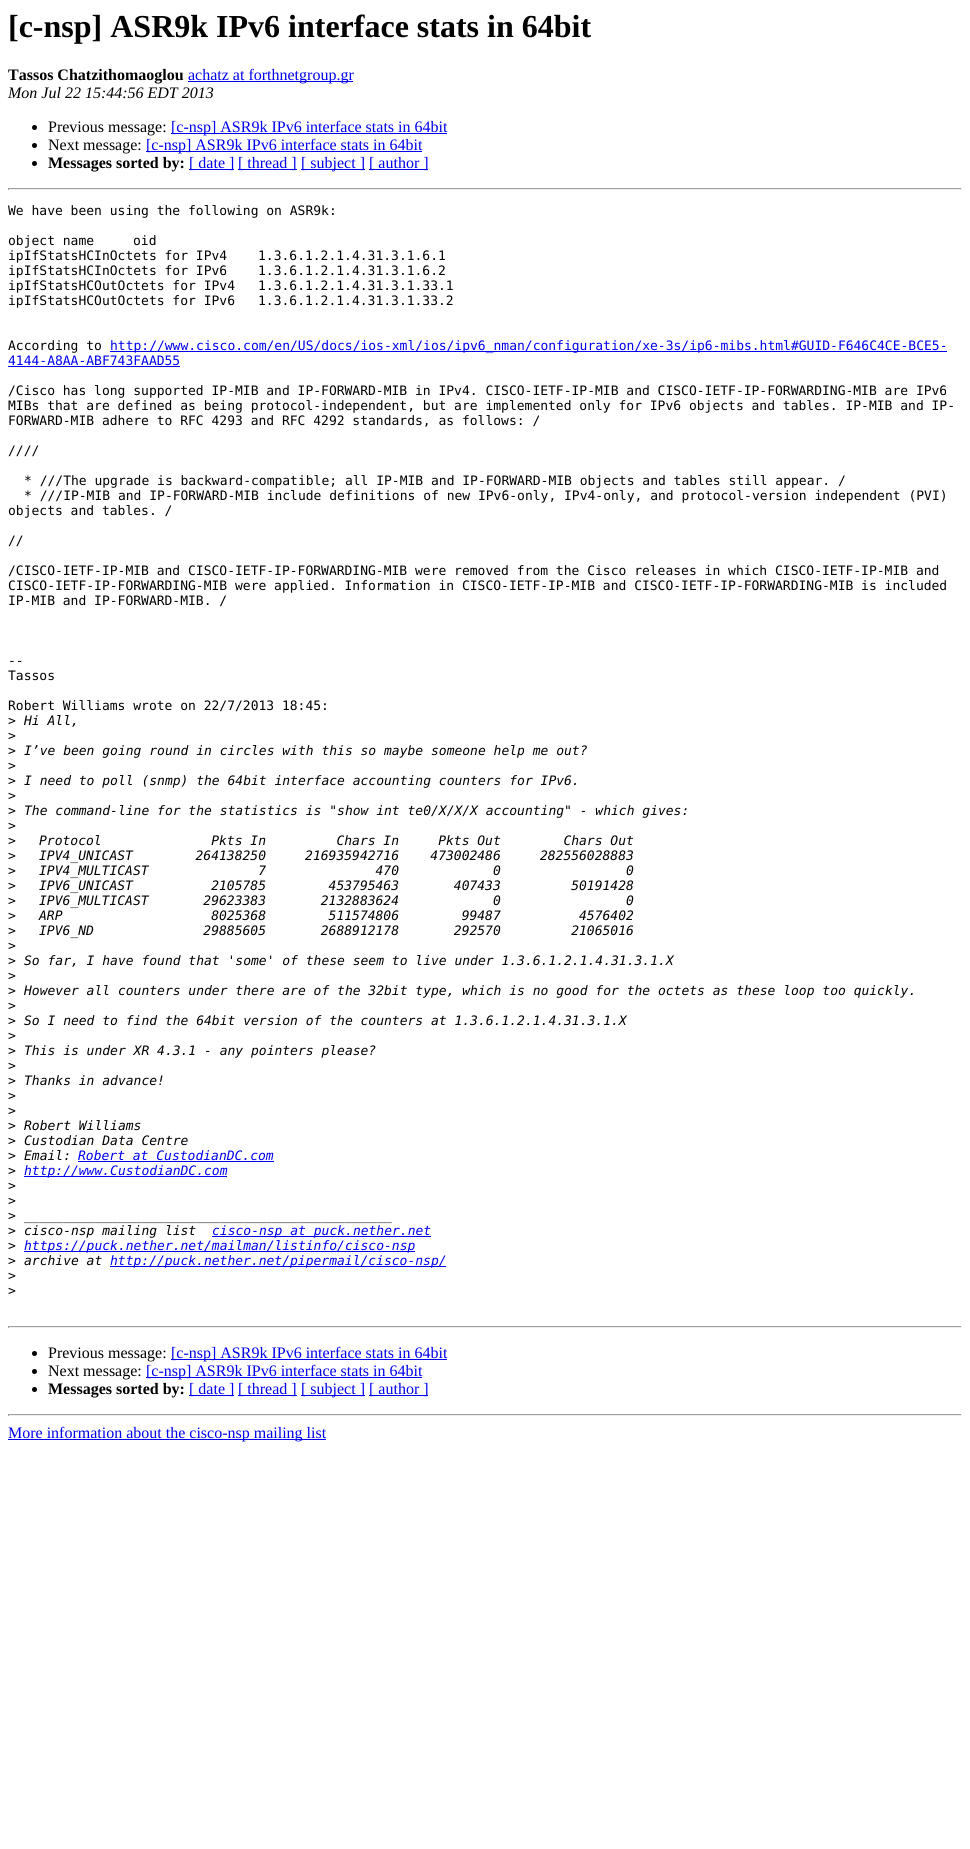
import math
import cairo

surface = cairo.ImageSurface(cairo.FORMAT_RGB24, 970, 1849)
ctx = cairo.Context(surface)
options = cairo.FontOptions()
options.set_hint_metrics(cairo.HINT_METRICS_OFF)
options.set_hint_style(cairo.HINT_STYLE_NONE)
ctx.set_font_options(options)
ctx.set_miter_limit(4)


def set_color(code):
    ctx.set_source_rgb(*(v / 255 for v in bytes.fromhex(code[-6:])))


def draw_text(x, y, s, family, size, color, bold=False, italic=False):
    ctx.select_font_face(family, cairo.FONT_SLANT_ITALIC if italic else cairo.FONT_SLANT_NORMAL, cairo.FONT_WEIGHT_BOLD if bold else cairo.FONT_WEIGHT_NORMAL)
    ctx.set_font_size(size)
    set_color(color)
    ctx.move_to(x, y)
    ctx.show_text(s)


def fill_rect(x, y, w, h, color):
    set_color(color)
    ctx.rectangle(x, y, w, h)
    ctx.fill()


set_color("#ffffff")
ctx.paint()
draw_text(8, 37, "[c-nsp] ASR9k IPv6 interface stats in 64bit", "Liberation Serif", 32, "#000000", bold=True)
draw_text(8, 80, "Tassos Chatzithomaoglou", "Liberation Serif", 16, "#000000", bold=True)
fill_rect(188, 81, 165, 1, "#0000ee")
draw_text(188, 80, "achatz at forthnetgroup.gr", "Liberation Serif", 16, "#0000ee")
draw_text(8, 98, "Mon Jul 22 15:44:56 EDT 2013", "Liberation Serif", 16, "#000000", italic=True)
ctx.new_path()
ctx.arc(34.5, 127.5, 2.5, 0, 2 * math.pi)
ctx.fill()
draw_text(48, 132, "Previous message:", "Liberation Serif", 16, "#000000")
fill_rect(171, 133, 276, 1, "#0000ee")
draw_text(171, 132, "[c-nsp] ASR9k IPv6 interface stats in 64bit", "Liberation Serif", 16, "#0000ee")
set_color("#000000")
ctx.new_path()
ctx.arc(34.5, 145.5, 2.5, 0, 2 * math.pi)
ctx.fill()
draw_text(48, 150, "Next message:", "Liberation Serif", 16, "#000000")
fill_rect(146, 151, 276, 1, "#0000ee")
draw_text(146, 150, "[c-nsp] ASR9k IPv6 interface stats in 64bit", "Liberation Serif", 16, "#0000ee")
set_color("#000000")
ctx.new_path()
ctx.arc(34.5, 163.5, 2.5, 0, 2 * math.pi)
ctx.fill()
draw_text(48, 168, "Messages sorted by:", "Liberation Serif", 16, "#000000", bold=True)
fill_rect(189, 169, 45, 1, "#0000ee")
draw_text(189, 168, "[ date ]", "Liberation Serif", 16, "#0000ee")
fill_rect(238, 169, 59, 1, "#0000ee")
draw_text(238, 168, "[ thread ]", "Liberation Serif", 16, "#0000ee")
fill_rect(301, 169, 64, 1, "#0000ee")
draw_text(301, 168, "[ subject ]", "Liberation Serif", 16, "#0000ee")
fill_rect(369, 169, 59, 1, "#0000ee")
draw_text(369, 168, "[ author ]", "Liberation Serif", 16, "#0000ee")
fill_rect(8, 188, 954, 1, "#9f9f9f")
fill_rect(961, 188, 1, 2, "#eeeeee")
fill_rect(8, 189, 954, 1, "#eeeeee")
fill_rect(8, 188, 1, 2, "#9f9f9f")
draw_text(8, 215, "We have been using the following on ASR9k:", "DejaVu Sans Mono", 13, "#000000")
draw_text(8, 245, "object name", "DejaVu Sans Mono", 13, "#000000")
draw_text(133, 245, "oid", "DejaVu Sans Mono", 13, "#000000")
draw_text(8, 260, "ipIfStatsHCInOctets for IPv4", "DejaVu Sans Mono", 13, "#000000")
draw_text(258, 260, "1.3.6.1.2.1.4.31.3.1.6.1", "DejaVu Sans Mono", 13, "#000000")
draw_text(8, 275, "ipIfStatsHCInOctets for IPv6", "DejaVu Sans Mono", 13, "#000000")
draw_text(258, 275, "1.3.6.1.2.1.4.31.3.1.6.2", "DejaVu Sans Mono", 13, "#000000")
draw_text(8, 290, "ipIfStatsHCOutOctets for IPv4", "DejaVu Sans Mono", 13, "#000000")
draw_text(258, 290, "1.3.6.1.2.1.4.31.3.1.33.1", "DejaVu Sans Mono", 13, "#000000")
draw_text(8, 305, "ipIfStatsHCOutOctets for IPv6", "DejaVu Sans Mono", 13, "#000000")
draw_text(258, 305, "1.3.6.1.2.1.4.31.3.1.33.2", "DejaVu Sans Mono", 13, "#000000")
draw_text(8, 350, "According to", "DejaVu Sans Mono", 13, "#000000")
fill_rect(110, 351, 837, 1, "#0000ee")
draw_text(110, 350, "http://www.cisco.com/en/US/docs/ios-xml/ios/ipv6_nman/configuration/xe-3s/ip6-mibs.html#GUID-F646C4CE-BCE5-", "DejaVu Sans Mono", 13, "#0000ee")
draw_text(8, 365, "4144-A8AA-ABF743FAAD55", "DejaVu Sans Mono", 13, "#0000ee")
fill_rect(8, 366, 172, 1, "#0000ee")
draw_text(8, 395, "/Cisco has long supported IP-MIB and IP-FORWARD-MIB in IPv4. CISCO-IETF-IP-MIB and CISCO-IETF-IP-FORWARDING-MIB are IPv6", "DejaVu Sans Mono", 13, "#000000")
draw_text(8, 410, "MIBs that are defined as being protocol-independent, but are implemented only for IPv6 objects and tables. IP-MIB and IP-", "DejaVu Sans Mono", 13, "#000000")
draw_text(8, 425, "FORWARD-MIB adhere to RFC 4293 and RFC 4292 standards, as follows: /", "DejaVu Sans Mono", 13, "#000000")
draw_text(8, 455, "////", "DejaVu Sans Mono", 13, "#000000")
draw_text(24, 485, "* ///The upgrade is backward-compatible; all IP-MIB and IP-FORWARD-MIB objects and tables still appear. /", "DejaVu Sans Mono", 13, "#000000")
draw_text(24, 500, "* ///IP-MIB and IP-FORWARD-MIB include definitions of new IPv6-only, IPv4-only, and protocol-version independent (PVI)", "DejaVu Sans Mono", 13, "#000000")
draw_text(8, 515, "objects and tables. /", "DejaVu Sans Mono", 13, "#000000")
draw_text(8, 545, "//", "DejaVu Sans Mono", 13, "#000000")
draw_text(8, 575, "/CISCO-IETF-IP-MIB and CISCO-IETF-IP-FORWARDING-MIB were removed from the Cisco releases in which CISCO-IETF-IP-MIB and", "DejaVu Sans Mono", 13, "#000000")
draw_text(8, 590, "CISCO-IETF-IP-FORWARDING-MIB were applied. Information in CISCO-IETF-IP-MIB and CISCO-IETF-IP-FORWARDING-MIB is included", "DejaVu Sans Mono", 13, "#000000")
draw_text(8, 605, "IP-MIB and IP-FORWARD-MIB. /", "DejaVu Sans Mono", 13, "#000000")
draw_text(8, 665, "--", "DejaVu Sans Mono", 13, "#000000")
draw_text(8, 680, "Tassos", "DejaVu Sans Mono", 13, "#000000")
draw_text(8, 710, "Robert Williams wrote on 22/7/2013 18:45:", "DejaVu Sans Mono", 13, "#000000")
draw_text(8, 725, ">", "DejaVu Sans Mono", 13, "#000000")
draw_text(24, 725, "Hi All,", "DejaVu Sans Mono", 13, "#000000", italic=True)
draw_text(8, 740, ">", "DejaVu Sans Mono", 13, "#000000")
draw_text(8, 755, ">", "DejaVu Sans Mono", 13, "#000000")
draw_text(24, 755, "I’ve been going round in circles with this so maybe someone help me out?", "DejaVu Sans Mono", 13, "#000000", italic=True)
draw_text(8, 770, ">", "DejaVu Sans Mono", 13, "#000000")
draw_text(8, 785, ">", "DejaVu Sans Mono", 13, "#000000")
draw_text(24, 785, "I need to poll (snmp) the 64bit interface accounting counters for IPv6.", "DejaVu Sans Mono", 13, "#000000", italic=True)
draw_text(8, 800, ">", "DejaVu Sans Mono", 13, "#000000")
draw_text(8, 815, ">", "DejaVu Sans Mono", 13, "#000000")
draw_text(24, 815, "The command-line for the statistics is \"show int te0/X/X/X accounting\" - which gives:", "DejaVu Sans Mono", 13, "#000000", italic=True)
draw_text(8, 830, ">", "DejaVu Sans Mono", 13, "#000000")
draw_text(8, 845, ">", "DejaVu Sans Mono", 13, "#000000")
draw_text(39, 845, "Protocol              Pkts In         Chars In     Pkts Out        Chars Out", "DejaVu Sans Mono", 13, "#000000", italic=True)
draw_text(8, 860, ">", "DejaVu Sans Mono", 13, "#000000")
draw_text(39, 860, "IPV4_UNICAST        264138250     216935942716    473002486     282556028883", "DejaVu Sans Mono", 13, "#000000", italic=True)
draw_text(8, 875, ">", "DejaVu Sans Mono", 13, "#000000")
draw_text(39, 875, "IPV4_MULTICAST              7              470            0                0", "DejaVu Sans Mono", 13, "#000000", italic=True)
draw_text(8, 890, ">", "DejaVu Sans Mono", 13, "#000000")
draw_text(39, 890, "IPV6_UNICAST          2105785        453795463       407433         50191428", "DejaVu Sans Mono", 13, "#000000", italic=True)
draw_text(8, 905, ">", "DejaVu Sans Mono", 13, "#000000")
draw_text(39, 905, "IPV6_MULTICAST       29623383       2132883624            0                0", "DejaVu Sans Mono", 13, "#000000", italic=True)
draw_text(8, 920, ">", "DejaVu Sans Mono", 13, "#000000")
draw_text(39, 920, "ARP                   8025368        511574806        99487          4576402", "DejaVu Sans Mono", 13, "#000000", italic=True)
draw_text(8, 935, ">", "DejaVu Sans Mono", 13, "#000000")
draw_text(39, 935, "IPV6_ND              29885605       2688912178       292570         21065016", "DejaVu Sans Mono", 13, "#000000", italic=True)
draw_text(8, 950, ">", "DejaVu Sans Mono", 13, "#000000")
draw_text(8, 965, ">", "DejaVu Sans Mono", 13, "#000000")
draw_text(24, 965, "So far, I have found that 'some' of these seem to live under 1.3.6.1.2.1.4.31.3.1.X", "DejaVu Sans Mono", 13, "#000000", italic=True)
draw_text(8, 980, ">", "DejaVu Sans Mono", 13, "#000000")
draw_text(8, 995, ">", "DejaVu Sans Mono", 13, "#000000")
draw_text(24, 995, "However all counters under there are of the 32bit type, which is no good for the octets as these loop too quickly.", "DejaVu Sans Mono", 13, "#000000", italic=True)
draw_text(8, 1010, ">", "DejaVu Sans Mono", 13, "#000000")
draw_text(8, 1025, ">", "DejaVu Sans Mono", 13, "#000000")
draw_text(24, 1025, "So I need to find the 64bit version of the counters at 1.3.6.1.2.1.4.31.3.1.X", "DejaVu Sans Mono", 13, "#000000", italic=True)
draw_text(8, 1040, ">", "DejaVu Sans Mono", 13, "#000000")
draw_text(8, 1055, ">", "DejaVu Sans Mono", 13, "#000000")
draw_text(24, 1055, "This is under XR 4.3.1 - any pointers please?", "DejaVu Sans Mono", 13, "#000000", italic=True)
draw_text(8, 1070, ">", "DejaVu Sans Mono", 13, "#000000")
draw_text(8, 1085, ">", "DejaVu Sans Mono", 13, "#000000")
draw_text(24, 1085, "Thanks in advance!", "DejaVu Sans Mono", 13, "#000000", italic=True)
draw_text(8, 1100, ">", "DejaVu Sans Mono", 13, "#000000")
draw_text(8, 1115, ">", "DejaVu Sans Mono", 13, "#000000")
draw_text(8, 1130, ">", "DejaVu Sans Mono", 13, "#000000")
draw_text(24, 1130, "Robert Williams", "DejaVu Sans Mono", 13, "#000000", italic=True)
draw_text(8, 1145, ">", "DejaVu Sans Mono", 13, "#000000")
draw_text(24, 1145, "Custodian Data Centre", "DejaVu Sans Mono", 13, "#000000", italic=True)
draw_text(8, 1160, ">", "DejaVu Sans Mono", 13, "#000000")
draw_text(24, 1160, "Email:", "DejaVu Sans Mono", 13, "#000000", italic=True)
draw_text(78, 1160, "Robert at CustodianDC.com", "DejaVu Sans Mono", 13, "#0000ee", italic=True)
fill_rect(78, 1161, 196, 1, "#0000ee")
draw_text(8, 1175, ">", "DejaVu Sans Mono", 13, "#000000")
fill_rect(24, 1176, 203, 1, "#0000ee")
draw_text(24, 1175, "http://www.CustodianDC.com", "DejaVu Sans Mono", 13, "#0000ee", italic=True)
draw_text(8, 1190, ">", "DejaVu Sans Mono", 13, "#000000")
draw_text(8, 1205, ">", "DejaVu Sans Mono", 13, "#000000")
draw_text(8, 1220, ">", "DejaVu Sans Mono", 13, "#000000")
draw_text(24, 1220, "_______________________________________________", "DejaVu Sans Mono", 13, "#000000", italic=True)
draw_text(8, 1235, ">", "DejaVu Sans Mono", 13, "#000000")
draw_text(24, 1235, "cisco-nsp mailing list", "DejaVu Sans Mono", 13, "#000000", italic=True)
fill_rect(212, 1236, 219, 1, "#0000ee")
draw_text(212, 1235, "cisco-nsp at puck.nether.net", "DejaVu Sans Mono", 13, "#0000ee", italic=True)
draw_text(8, 1250, ">", "DejaVu Sans Mono", 13, "#000000")
fill_rect(24, 1251, 391, 1, "#0000ee")
draw_text(24, 1250, "https://puck.nether.net/mailman/listinfo/cisco-nsp", "DejaVu Sans Mono", 13, "#0000ee", italic=True)
draw_text(8, 1265, ">", "DejaVu Sans Mono", 13, "#000000")
draw_text(24, 1265, "archive at", "DejaVu Sans Mono", 13, "#000000", italic=True)
fill_rect(110, 1266, 336, 1, "#0000ee")
draw_text(110, 1265, "http://puck.nether.net/pipermail/cisco-nsp/", "DejaVu Sans Mono", 13, "#0000ee", italic=True)
draw_text(8, 1280, ">", "DejaVu Sans Mono", 13, "#000000")
draw_text(8, 1295, ">", "DejaVu Sans Mono", 13, "#000000")
fill_rect(8, 1326, 954, 1, "#9f9f9f")
fill_rect(961, 1326, 1, 2, "#eeeeee")
fill_rect(8, 1327, 954, 1, "#eeeeee")
fill_rect(8, 1326, 1, 2, "#9f9f9f")
set_color("#000000")
ctx.new_path()
ctx.arc(34.5, 1353.5, 2.5, 0, 2 * math.pi)
ctx.fill()
draw_text(48, 1358, "Previous message:", "Liberation Serif", 16, "#000000")
fill_rect(171, 1359, 276, 1, "#0000ee")
draw_text(171, 1358, "[c-nsp] ASR9k IPv6 interface stats in 64bit", "Liberation Serif", 16, "#0000ee")
set_color("#000000")
ctx.new_path()
ctx.arc(34.5, 1371.5, 2.5, 0, 2 * math.pi)
ctx.fill()
draw_text(48, 1376, "Next message:", "Liberation Serif", 16, "#000000")
fill_rect(146, 1377, 276, 1, "#0000ee")
draw_text(146, 1376, "[c-nsp] ASR9k IPv6 interface stats in 64bit", "Liberation Serif", 16, "#0000ee")
set_color("#000000")
ctx.new_path()
ctx.arc(34.5, 1389.5, 2.5, 0, 2 * math.pi)
ctx.fill()
draw_text(48, 1394, "Messages sorted by:", "Liberation Serif", 16, "#000000", bold=True)
fill_rect(189, 1395, 45, 1, "#0000ee")
draw_text(189, 1394, "[ date ]", "Liberation Serif", 16, "#0000ee")
fill_rect(238, 1395, 59, 1, "#0000ee")
draw_text(238, 1394, "[ thread ]", "Liberation Serif", 16, "#0000ee")
fill_rect(301, 1395, 64, 1, "#0000ee")
draw_text(301, 1394, "[ subject ]", "Liberation Serif", 16, "#0000ee")
fill_rect(369, 1395, 59, 1, "#0000ee")
draw_text(369, 1394, "[ author ]", "Liberation Serif", 16, "#0000ee")
fill_rect(8, 1414, 954, 1, "#9f9f9f")
fill_rect(961, 1414, 1, 2, "#eeeeee")
fill_rect(8, 1415, 954, 1, "#eeeeee")
fill_rect(8, 1414, 1, 2, "#9f9f9f")
fill_rect(8, 1439, 318, 1, "#0000ee")
draw_text(8, 1438, "More information about the cisco-nsp mailing list", "Liberation Serif", 16, "#0000ee")
surface.write_to_png("output.png")
